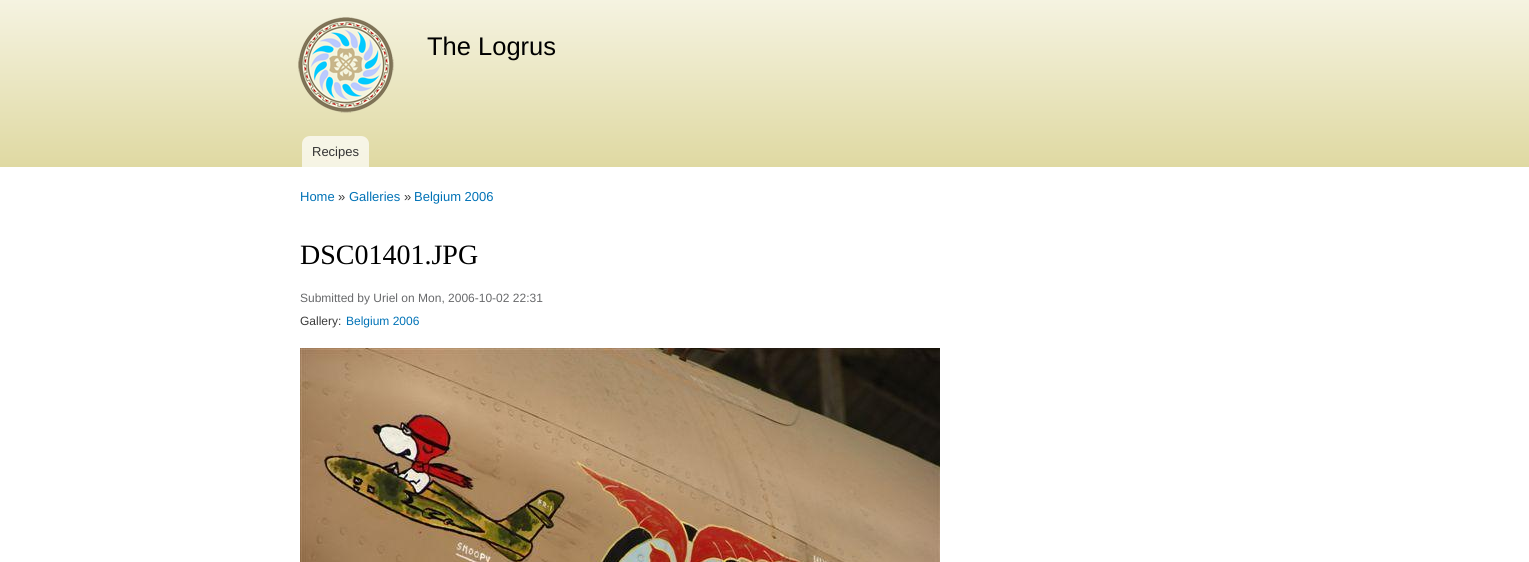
import math
import cairo

surface = cairo.ImageSurface(cairo.FORMAT_RGB24, 1529, 562)
ctx = cairo.Context(surface)
options = cairo.FontOptions()
options.set_hint_metrics(cairo.HINT_METRICS_OFF)
options.set_hint_style(cairo.HINT_STYLE_NONE)
ctx.set_font_options(options)
ctx.set_miter_limit(4)


def set_color(code):
    ctx.set_source_rgb(*(v / 255 for v in bytes.fromhex(code[-6:])))


def draw_text(x, y, s, family, size, color, bold=False, italic=False):
    ctx.select_font_face(family, cairo.FONT_SLANT_ITALIC if italic else cairo.FONT_SLANT_NORMAL, cairo.FONT_WEIGHT_BOLD if bold else cairo.FONT_WEIGHT_NORMAL)
    ctx.set_font_size(size)
    set_color(color)
    ctx.move_to(x, y)
    ctx.show_text(s)


def draw_image(path, x, y, w, h):
    ctx.save()
    ctx.set_source_surface(cairo.ImageSurface.create_from_png(path), x, y)
    ctx.rectangle(x, y, w, h)
    ctx.fill()
    ctx.restore()


set_color("#ffffff")
ctx.paint()
gradient = cairo.LinearGradient(0, 0, 0, 167)
gradient.add_color_stop_rgba(0, 0.961, 0.953, 0.882, 1)
gradient.add_color_stop_rgba(1, 0.875, 0.851, 0.635, 1)
ctx.set_source(gradient)
ctx.rectangle(0, 0, 1529, 167)
ctx.fill()
draw_image("assets/img1.png", 298, 17, 96, 96)
draw_text(427, 55, "The Logrus", "Liberation Sans", 25.5, "#000000")
ctx.set_source_rgba(1, 1, 1, 0.7)
ctx.new_path()
ctx.move_to(310, 136)
ctx.line_to(361, 136)
ctx.curve_to(365.5, 136, 369, 139.5, 369, 144)
ctx.line_to(369, 167)
ctx.line_to(302, 167)
ctx.line_to(302, 144)
ctx.curve_to(302, 139.5, 305.5, 136, 310, 136)
ctx.close_path()
ctx.fill()
draw_text(312, 156, "Recipes", "Liberation Sans", 13, "#333333")
draw_text(300, 201, "Home", "Liberation Sans", 13, "#0072b6")
draw_text(338, 201, "»", "Liberation Sans", 13, "#3b3b3b")
draw_text(349, 201, "Galleries", "Liberation Sans", 13, "#0072b6")
draw_text(404, 201, "»", "Liberation Sans", 13, "#3b3b3b")
draw_text(414, 201, "Belgium 2006", "Liberation Sans", 13, "#0072b6")
draw_text(300, 264, "DSC01401.JPG", "Liberation Serif", 28, "#000000")
draw_text(300, 302, "Submitted by Uriel on Mon, 2006-10-02 22:31", "Liberation Sans", 12, "#68696b")
draw_text(300, 325, "Gallery:", "Liberation Sans", 12, "#3b3b3b")
draw_text(346, 325, "Belgium 2006", "Liberation Sans", 12, "#0072b6")
draw_image("assets/img2.png", 300, 348, 640, 214)
surface.write_to_png("output.png")
